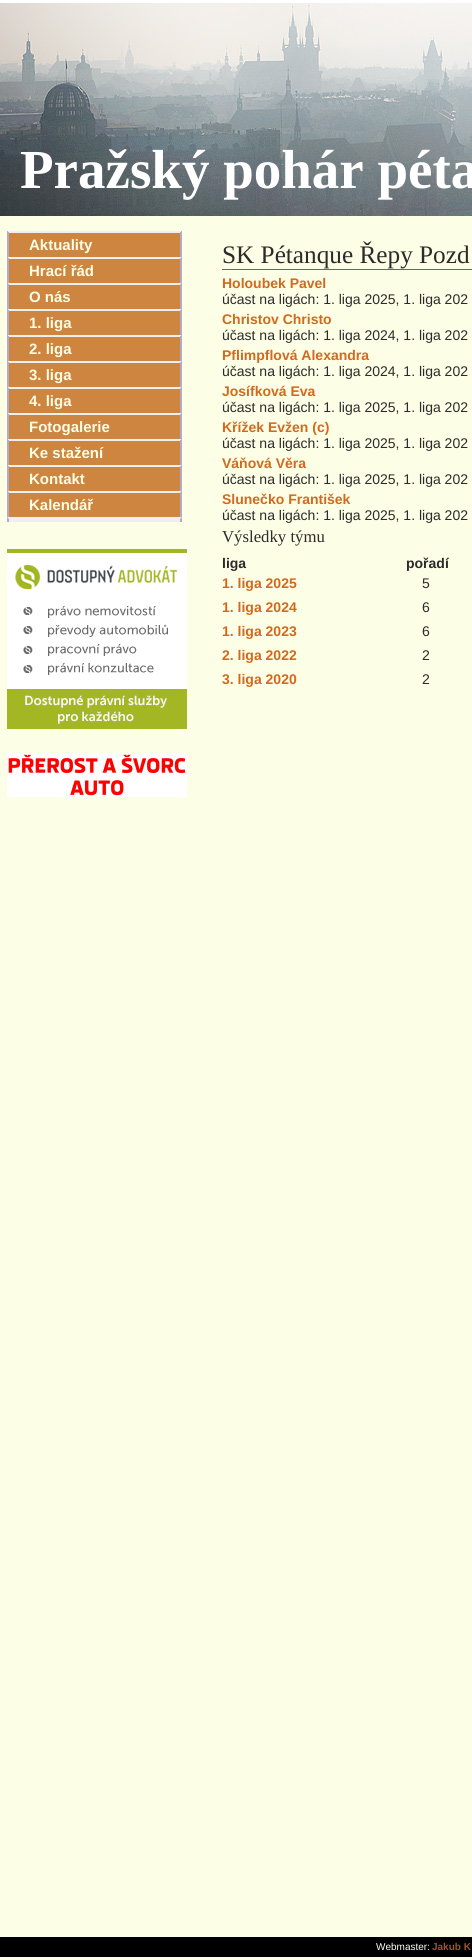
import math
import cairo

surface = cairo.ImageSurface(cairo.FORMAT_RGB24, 472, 1960)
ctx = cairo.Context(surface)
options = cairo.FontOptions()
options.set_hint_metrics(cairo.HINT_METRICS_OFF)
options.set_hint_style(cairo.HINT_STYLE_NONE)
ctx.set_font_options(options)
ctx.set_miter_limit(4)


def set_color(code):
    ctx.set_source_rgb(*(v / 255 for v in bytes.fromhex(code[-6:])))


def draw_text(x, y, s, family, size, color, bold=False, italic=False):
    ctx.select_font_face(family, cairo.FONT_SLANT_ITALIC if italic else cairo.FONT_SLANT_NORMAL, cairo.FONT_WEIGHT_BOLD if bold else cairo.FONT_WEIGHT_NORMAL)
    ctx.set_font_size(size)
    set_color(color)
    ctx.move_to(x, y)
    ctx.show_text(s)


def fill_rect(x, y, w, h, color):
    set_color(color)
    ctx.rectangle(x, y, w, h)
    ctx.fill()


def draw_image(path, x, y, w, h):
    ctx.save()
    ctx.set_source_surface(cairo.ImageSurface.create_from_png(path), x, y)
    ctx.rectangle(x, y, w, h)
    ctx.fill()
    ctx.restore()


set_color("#fdfee6")
ctx.paint()
draw_image("assets/img1.png", 0, 3, 472, 213)
fill_rect(0, 0, 472, 3, "#ffffff")
draw_text(20, 188, "Pražský pohár péta", "Liberation Serif", 55, "#ffffff", bold=True)
fill_rect(7, 231, 175, 286, "#cd853f")
set_color("#efefef")
ctx.new_path()
ctx.move_to(7, 231)
ctx.line_to(182, 231)
ctx.line_to(180, 233)
ctx.line_to(9, 233)
ctx.close_path()
ctx.fill()
set_color("#b0abcb")
ctx.new_path()
ctx.move_to(182, 231)
ctx.line_to(182, 257)
ctx.line_to(180, 257)
ctx.line_to(180, 233)
ctx.close_path()
ctx.fill()
ctx.new_path()
ctx.move_to(7, 257)
ctx.line_to(7, 231)
ctx.line_to(9, 233)
ctx.line_to(9, 257)
ctx.close_path()
ctx.fill()
draw_text(29, 250, "Aktuality", "Liberation Sans", 15, "#fdfee6", bold=True)
set_color("#efefef")
ctx.new_path()
ctx.move_to(7, 257)
ctx.line_to(182, 257)
ctx.line_to(180, 259)
ctx.line_to(9, 259)
ctx.close_path()
ctx.fill()
set_color("#b0abcb")
ctx.new_path()
ctx.move_to(182, 257)
ctx.line_to(182, 283)
ctx.line_to(180, 283)
ctx.line_to(180, 259)
ctx.close_path()
ctx.fill()
ctx.new_path()
ctx.move_to(7, 283)
ctx.line_to(7, 257)
ctx.line_to(9, 259)
ctx.line_to(9, 283)
ctx.close_path()
ctx.fill()
draw_text(29, 276, "Hrací řád", "Liberation Sans", 15, "#fdfee6", bold=True)
set_color("#efefef")
ctx.new_path()
ctx.move_to(7, 283)
ctx.line_to(182, 283)
ctx.line_to(180, 285)
ctx.line_to(9, 285)
ctx.close_path()
ctx.fill()
set_color("#b0abcb")
ctx.new_path()
ctx.move_to(182, 283)
ctx.line_to(182, 309)
ctx.line_to(180, 309)
ctx.line_to(180, 285)
ctx.close_path()
ctx.fill()
ctx.new_path()
ctx.move_to(7, 309)
ctx.line_to(7, 283)
ctx.line_to(9, 285)
ctx.line_to(9, 309)
ctx.close_path()
ctx.fill()
draw_text(29, 302, "O nás", "Liberation Sans", 15, "#fdfee6", bold=True)
set_color("#efefef")
ctx.new_path()
ctx.move_to(7, 309)
ctx.line_to(182, 309)
ctx.line_to(180, 311)
ctx.line_to(9, 311)
ctx.close_path()
ctx.fill()
set_color("#b0abcb")
ctx.new_path()
ctx.move_to(182, 309)
ctx.line_to(182, 335)
ctx.line_to(180, 335)
ctx.line_to(180, 311)
ctx.close_path()
ctx.fill()
ctx.new_path()
ctx.move_to(7, 335)
ctx.line_to(7, 309)
ctx.line_to(9, 311)
ctx.line_to(9, 335)
ctx.close_path()
ctx.fill()
draw_text(29, 328, "1. liga", "Liberation Sans", 15, "#fdfee6", bold=True)
set_color("#efefef")
ctx.new_path()
ctx.move_to(7, 335)
ctx.line_to(182, 335)
ctx.line_to(180, 337)
ctx.line_to(9, 337)
ctx.close_path()
ctx.fill()
set_color("#b0abcb")
ctx.new_path()
ctx.move_to(182, 335)
ctx.line_to(182, 361)
ctx.line_to(180, 361)
ctx.line_to(180, 337)
ctx.close_path()
ctx.fill()
ctx.new_path()
ctx.move_to(7, 361)
ctx.line_to(7, 335)
ctx.line_to(9, 337)
ctx.line_to(9, 361)
ctx.close_path()
ctx.fill()
draw_text(29, 354, "2. liga", "Liberation Sans", 15, "#fdfee6", bold=True)
set_color("#efefef")
ctx.new_path()
ctx.move_to(7, 361)
ctx.line_to(182, 361)
ctx.line_to(180, 363)
ctx.line_to(9, 363)
ctx.close_path()
ctx.fill()
set_color("#b0abcb")
ctx.new_path()
ctx.move_to(182, 361)
ctx.line_to(182, 387)
ctx.line_to(180, 387)
ctx.line_to(180, 363)
ctx.close_path()
ctx.fill()
ctx.new_path()
ctx.move_to(7, 387)
ctx.line_to(7, 361)
ctx.line_to(9, 363)
ctx.line_to(9, 387)
ctx.close_path()
ctx.fill()
draw_text(29, 380, "3. liga", "Liberation Sans", 15, "#fdfee6", bold=True)
set_color("#efefef")
ctx.new_path()
ctx.move_to(7, 387)
ctx.line_to(182, 387)
ctx.line_to(180, 389)
ctx.line_to(9, 389)
ctx.close_path()
ctx.fill()
set_color("#b0abcb")
ctx.new_path()
ctx.move_to(182, 387)
ctx.line_to(182, 413)
ctx.line_to(180, 413)
ctx.line_to(180, 389)
ctx.close_path()
ctx.fill()
ctx.new_path()
ctx.move_to(7, 413)
ctx.line_to(7, 387)
ctx.line_to(9, 389)
ctx.line_to(9, 413)
ctx.close_path()
ctx.fill()
draw_text(29, 406, "4. liga", "Liberation Sans", 15, "#fdfee6", bold=True)
set_color("#efefef")
ctx.new_path()
ctx.move_to(7, 413)
ctx.line_to(182, 413)
ctx.line_to(180, 415)
ctx.line_to(9, 415)
ctx.close_path()
ctx.fill()
set_color("#b0abcb")
ctx.new_path()
ctx.move_to(182, 413)
ctx.line_to(182, 439)
ctx.line_to(180, 439)
ctx.line_to(180, 415)
ctx.close_path()
ctx.fill()
ctx.new_path()
ctx.move_to(7, 439)
ctx.line_to(7, 413)
ctx.line_to(9, 415)
ctx.line_to(9, 439)
ctx.close_path()
ctx.fill()
draw_text(29, 432, "Fotogalerie", "Liberation Sans", 15, "#fdfee6", bold=True)
set_color("#efefef")
ctx.new_path()
ctx.move_to(7, 439)
ctx.line_to(182, 439)
ctx.line_to(180, 441)
ctx.line_to(9, 441)
ctx.close_path()
ctx.fill()
set_color("#b0abcb")
ctx.new_path()
ctx.move_to(182, 439)
ctx.line_to(182, 465)
ctx.line_to(180, 465)
ctx.line_to(180, 441)
ctx.close_path()
ctx.fill()
ctx.new_path()
ctx.move_to(7, 465)
ctx.line_to(7, 439)
ctx.line_to(9, 441)
ctx.line_to(9, 465)
ctx.close_path()
ctx.fill()
draw_text(29, 458, "Ke stažení", "Liberation Sans", 15, "#fdfee6", bold=True)
set_color("#efefef")
ctx.new_path()
ctx.move_to(7, 465)
ctx.line_to(182, 465)
ctx.line_to(180, 467)
ctx.line_to(9, 467)
ctx.close_path()
ctx.fill()
set_color("#b0abcb")
ctx.new_path()
ctx.move_to(182, 465)
ctx.line_to(182, 491)
ctx.line_to(180, 491)
ctx.line_to(180, 467)
ctx.close_path()
ctx.fill()
ctx.new_path()
ctx.move_to(7, 491)
ctx.line_to(7, 465)
ctx.line_to(9, 467)
ctx.line_to(9, 491)
ctx.close_path()
ctx.fill()
draw_text(29, 484, "Kontakt", "Liberation Sans", 15, "#fdfee6", bold=True)
set_color("#efefef")
ctx.new_path()
ctx.move_to(7, 491)
ctx.line_to(182, 491)
ctx.line_to(180, 493)
ctx.line_to(9, 493)
ctx.close_path()
ctx.fill()
set_color("#b0abcb")
ctx.new_path()
ctx.move_to(182, 491)
ctx.line_to(182, 517)
ctx.line_to(180, 517)
ctx.line_to(180, 493)
ctx.close_path()
ctx.fill()
ctx.new_path()
ctx.move_to(7, 517)
ctx.line_to(7, 491)
ctx.line_to(9, 493)
ctx.line_to(9, 517)
ctx.close_path()
ctx.fill()
draw_text(29, 510, "Kalendář", "Liberation Sans", 15, "#fdfee6", bold=True)
fill_rect(7, 517, 175, 5, "#efefef")
set_color("#b0abcb")
ctx.new_path()
ctx.move_to(182, 517)
ctx.line_to(182, 522)
ctx.line_to(180, 522)
ctx.line_to(180, 519)
ctx.close_path()
ctx.fill()
ctx.new_path()
ctx.move_to(7, 522)
ctx.line_to(7, 517)
ctx.line_to(9, 519)
ctx.line_to(9, 522)
ctx.close_path()
ctx.fill()
draw_image("assets/img2.png", 7, 549, 180, 180)
draw_image("assets/img3.png", 7, 753, 180, 44)
fill_rect(222, 269, 250, 1, "#a0522d")
draw_text(222, 263, "SK Pétanque Řepy Pozd", "Liberation Serif", 25.25, "#2b2b2b")
draw_text(222, 288, "Holoubek Pavel", "Liberation Sans", 14, "#d2691e", bold=True)
draw_text(222, 304, "účast na ligách: 1. liga 2025, 1. liga 202", "Liberation Sans", 14, "#2b2b2b")
draw_text(222, 324, "Christov Christo", "Liberation Sans", 14, "#d2691e", bold=True)
draw_text(222, 340, "účast na ligách: 1. liga 2024, 1. liga 202", "Liberation Sans", 14, "#2b2b2b")
draw_text(222, 360, "Pflimpflová Alexandra", "Liberation Sans", 14, "#d2691e", bold=True)
draw_text(222, 376, "účast na ligách: 1. liga 2024, 1. liga 202", "Liberation Sans", 14, "#2b2b2b")
draw_text(222, 396, "Josífková Eva", "Liberation Sans", 14, "#d2691e", bold=True)
draw_text(222, 412, "účast na ligách: 1. liga 2025, 1. liga 202", "Liberation Sans", 14, "#2b2b2b")
draw_text(222, 432, "Křížek Evžen (c)", "Liberation Sans", 14, "#d2691e", bold=True)
draw_text(222, 448, "účast na ligách: 1. liga 2025, 1. liga 202", "Liberation Sans", 14, "#2b2b2b")
draw_text(222, 468, "Váňová Věra", "Liberation Sans", 14, "#d2691e", bold=True)
draw_text(222, 484, "účast na ligách: 1. liga 2025, 1. liga 202", "Liberation Sans", 14, "#2b2b2b")
draw_text(222, 504, "Slunečko František", "Liberation Sans", 14, "#d2691e", bold=True)
draw_text(222, 520, "účast na ligách: 1. liga 2025, 1. liga 202", "Liberation Sans", 14, "#2b2b2b")
draw_text(222, 542, "Výsledky týmu", "Liberation Serif", 16.75, "#2b2b2b")
draw_text(222, 568, "liga", "Liberation Sans", 14, "#2b2b2b", bold=True)
draw_text(406, 568, "pořadí", "Liberation Sans", 14, "#2b2b2b", bold=True)
draw_text(222, 588, "1. liga 2025", "Liberation Sans", 14, "#d2691e", bold=True)
draw_text(422, 588, "5", "Liberation Sans", 14, "#2b2b2b")
draw_text(222, 612, "1. liga 2024", "Liberation Sans", 14, "#d2691e", bold=True)
draw_text(422, 612, "6", "Liberation Sans", 14, "#2b2b2b")
draw_text(222, 636, "1. liga 2023", "Liberation Sans", 14, "#d2691e", bold=True)
draw_text(422, 636, "6", "Liberation Sans", 14, "#2b2b2b")
draw_text(222, 660, "2. liga 2022", "Liberation Sans", 14, "#d2691e", bold=True)
draw_text(422, 660, "2", "Liberation Sans", 14, "#2b2b2b")
draw_text(222, 684, "3. liga 2020", "Liberation Sans", 14, "#d2691e", bold=True)
draw_text(422, 684, "2", "Liberation Sans", 14, "#2b2b2b")
fill_rect(0, 1937, 472, 20, "#000000")
draw_text(376, 1950, "Webmaster:", "Liberation Sans", 10, "#ffffff")
draw_text(432, 1950, "Jakub K", "Liberation Sans", 10, "#a0522d", bold=True)
surface.write_to_png("output.png")
